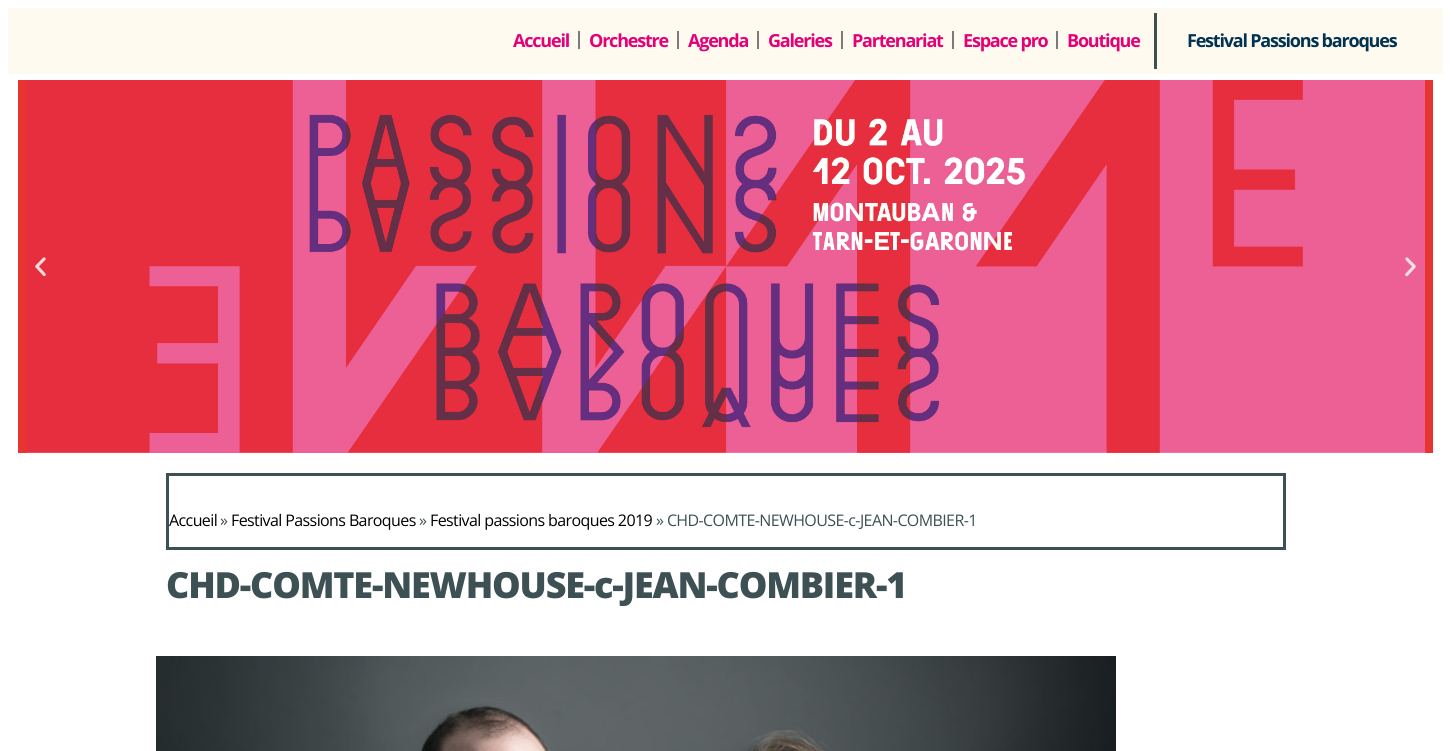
import math
import cairo

surface = cairo.ImageSurface(cairo.FORMAT_RGB24, 1451, 751)
ctx = cairo.Context(surface)
options = cairo.FontOptions()
options.set_hint_metrics(cairo.HINT_METRICS_OFF)
options.set_hint_style(cairo.HINT_STYLE_NONE)
ctx.set_font_options(options)
ctx.set_miter_limit(4)


def set_color(code):
    ctx.set_source_rgb(*(v / 255 for v in bytes.fromhex(code[-6:])))


def draw_spaced(x, y, s, letter, word):
    ctx.move_to(x, y)
    for ch in s:
        ctx.show_text(ch)
        ctx.rel_move_to(letter + word * (ch == ' '), 0)


def fill_rect(x, y, w, h, color):
    set_color(color)
    ctx.rectangle(x, y, w, h)
    ctx.fill()


def draw_image(path, x, y, w, h):
    ctx.save()
    ctx.set_source_surface(cairo.ImageSurface.create_from_png(path), x, y)
    ctx.rectangle(x, y, w, h)
    ctx.fill()
    ctx.restore()


set_color("#ffffff")
ctx.paint()
fill_rect(8, 8, 1435, 66, "#fffaf0")
fill_rect(1154, 13, 3, 56, "#3d5054")
ctx.select_font_face("Open Sans", cairo.FONT_SLANT_NORMAL, cairo.FONT_WEIGHT_BOLD)
ctx.set_font_size(18)
set_color("#e40077")
draw_spaced(513, 47, "Accueil", -1.2, 0)
fill_rect(578, 31, 2, 18, "#7a7a7a")
set_color("#e40077")
draw_spaced(589, 47, "Orchestre", -1.2, 0)
fill_rect(677, 31, 2, 18, "#7a7a7a")
set_color("#e40077")
draw_spaced(688, 47, "Agenda", -1.2, 0)
fill_rect(757, 31, 2, 18, "#7a7a7a")
set_color("#e40077")
draw_spaced(768, 47, "Galeries", -1.2, 0)
fill_rect(841, 31, 2, 18, "#7a7a7a")
set_color("#e40077")
draw_spaced(852, 47, "Partenariat", -1.2, 0)
fill_rect(952, 31, 2, 18, "#7a7a7a")
set_color("#e40077")
draw_spaced(963, 47, "Espace pro", -1.2, 0)
fill_rect(1056, 31, 2, 18, "#7a7a7a")
set_color("#e40077")
draw_spaced(1067, 47, "Boutique", -1.2, 0)
set_color("#003352")
draw_spaced(1187, 47, "Festival Passions baroques", -1.2, 0)
fill_rect(18, 80, 1415, 373, "#e73331")
draw_image("assets/img1.png", 27, 80, 1398, 373)
draw_image("assets/img2.png", 35, 257, 11, 20)
draw_image("assets/img3.png", 1405, 257, 11, 20)
ctx.new_path()
ctx.move_to(167.5, 474.5)
ctx.line_to(1284.5, 474.5)
ctx.line_to(1284.5, 548.5)
ctx.line_to(167.5, 548.5)
ctx.close_path()
set_color("#3d5054")
ctx.set_line_width(3)
ctx.stroke()
ctx.select_font_face("Open Sans")
ctx.set_font_size(16)
set_color("#000000")
draw_spaced(169, 526, "Accueil", -0.6, 0)
set_color("#3d5054")
draw_spaced(220, 526, "»", -0.6, 0)
set_color("#000000")
draw_spaced(231, 526, "Festival Passions Baroques", -0.6, 0)
set_color("#3d5054")
draw_spaced(419, 526, "»", -0.6, 0)
set_color("#000000")
draw_spaced(430, 526, "Festival passions baroques 2019", -0.6, 0)
set_color("#3d5054")
draw_spaced(656, 526, "» CHD-COMTE-NEWHOUSE-c-JEAN-COMBIER-1", -0.6, 0)
ctx.select_font_face("Open Sans ExtraBold")
ctx.set_font_size(36)
draw_spaced(166, 598, "CHD-COMTE-NEWHOUSE-c-JEAN-COMBIER-1", -1.2, 0)
draw_image("assets/img4.png", 156, 656, 960, 95)
surface.write_to_png("output.png")
